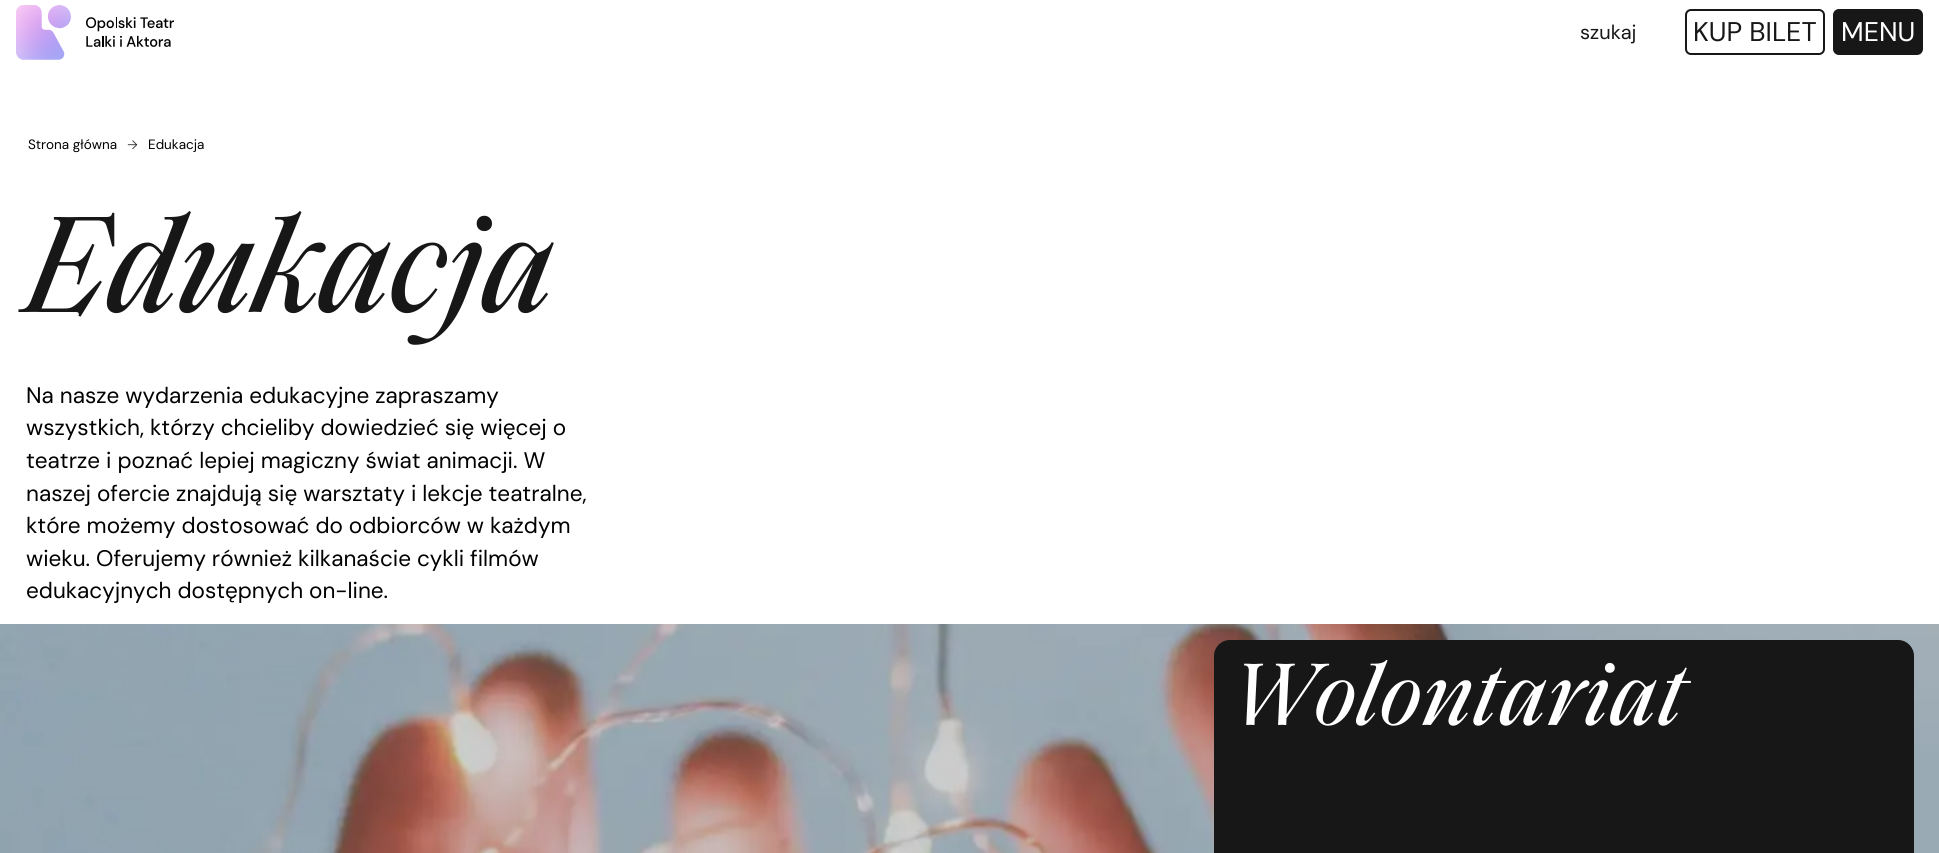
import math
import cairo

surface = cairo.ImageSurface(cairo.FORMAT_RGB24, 1939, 853)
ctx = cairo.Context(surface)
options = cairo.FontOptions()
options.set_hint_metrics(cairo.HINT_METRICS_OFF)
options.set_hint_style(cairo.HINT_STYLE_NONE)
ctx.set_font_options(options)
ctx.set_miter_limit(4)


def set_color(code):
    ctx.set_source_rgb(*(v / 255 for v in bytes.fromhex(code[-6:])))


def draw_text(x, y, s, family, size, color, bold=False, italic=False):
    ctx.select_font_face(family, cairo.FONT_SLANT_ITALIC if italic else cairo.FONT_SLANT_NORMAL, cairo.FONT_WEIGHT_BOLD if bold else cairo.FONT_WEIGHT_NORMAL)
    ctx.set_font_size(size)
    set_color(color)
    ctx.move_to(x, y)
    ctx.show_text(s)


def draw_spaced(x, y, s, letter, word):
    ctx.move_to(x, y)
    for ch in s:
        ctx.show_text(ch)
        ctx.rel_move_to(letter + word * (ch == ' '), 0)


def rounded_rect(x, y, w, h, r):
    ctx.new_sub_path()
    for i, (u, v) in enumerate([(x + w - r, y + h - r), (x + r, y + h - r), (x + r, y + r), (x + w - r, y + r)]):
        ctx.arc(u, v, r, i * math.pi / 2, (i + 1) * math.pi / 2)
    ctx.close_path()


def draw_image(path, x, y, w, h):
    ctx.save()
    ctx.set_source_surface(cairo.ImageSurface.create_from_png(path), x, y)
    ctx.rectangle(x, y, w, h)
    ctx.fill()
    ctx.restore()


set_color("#ffffff")
ctx.paint()
draw_image("assets/img1.png", 16, 5, 55, 55)
draw_image("assets/img2.png", 86, 17, 88, 30)
draw_text(1580, 39, "szukaj", "DM Sans", 20, "#171717")
rounded_rect(1686, 10, 138, 44, 5)
ctx.stroke()
draw_text(1693, 41, "KUP BILET", "DM Sans", 27, "#171717")
rounded_rect(1834, 10, 88, 44, 5)
ctx.fill_preserve()
ctx.stroke()
draw_text(1841, 41, "MENU", "DM Sans", 27, "#ffffff")
draw_text(28, 149, "Strona główna", "DM Sans", 13.5, "#000000")
draw_image("assets/img3.png", 127, 140, 11, 10)
draw_text(148, 149, "Edukacja", "DM Sans", 13.5, "#000000")
ctx.select_font_face("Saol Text", cairo.FONT_SLANT_ITALIC)
ctx.set_font_size(139.5)
set_color("#171717")
draw_spaced(26, 312, "Edukacja", -2.75, 0)
draw_text(26, 403, "Na nasze wydarzenia edukacyjne zapraszamy", "DM Sans", 22.5, "#000000")
draw_text(26, 435, "wszystkich, którzy chcieliby dowiedzieć się więcej o", "DM Sans", 22.5, "#000000")
draw_text(26, 468, "teatrze i poznać lepiej magiczny świat animacji. W", "DM Sans", 22.5, "#000000")
draw_text(26, 501, "naszej ofercie znajdują się warsztaty i lekcje teatralne,", "DM Sans", 22.5, "#000000")
draw_text(26, 533, "które możemy dostosować do odbiorców w każdym", "DM Sans", 22.5, "#000000")
draw_text(26, 566, "wieku. Oferujemy również kilkanaście cykli filmów", "DM Sans", 22.5, "#000000")
draw_text(26, 598, "edukacyjnych dostępnych on-line.", "DM Sans", 22.5, "#000000")
draw_image("assets/img4.png", 0, 624, 1939, 229)
set_color("#171717")
rounded_rect(1214, 640, 700, 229, 16)
ctx.fill()
draw_text(1230, 725, "Wolontariat", "Saol Text", 90, "#ffffff", italic=True)
surface.write_to_png("output.png")
